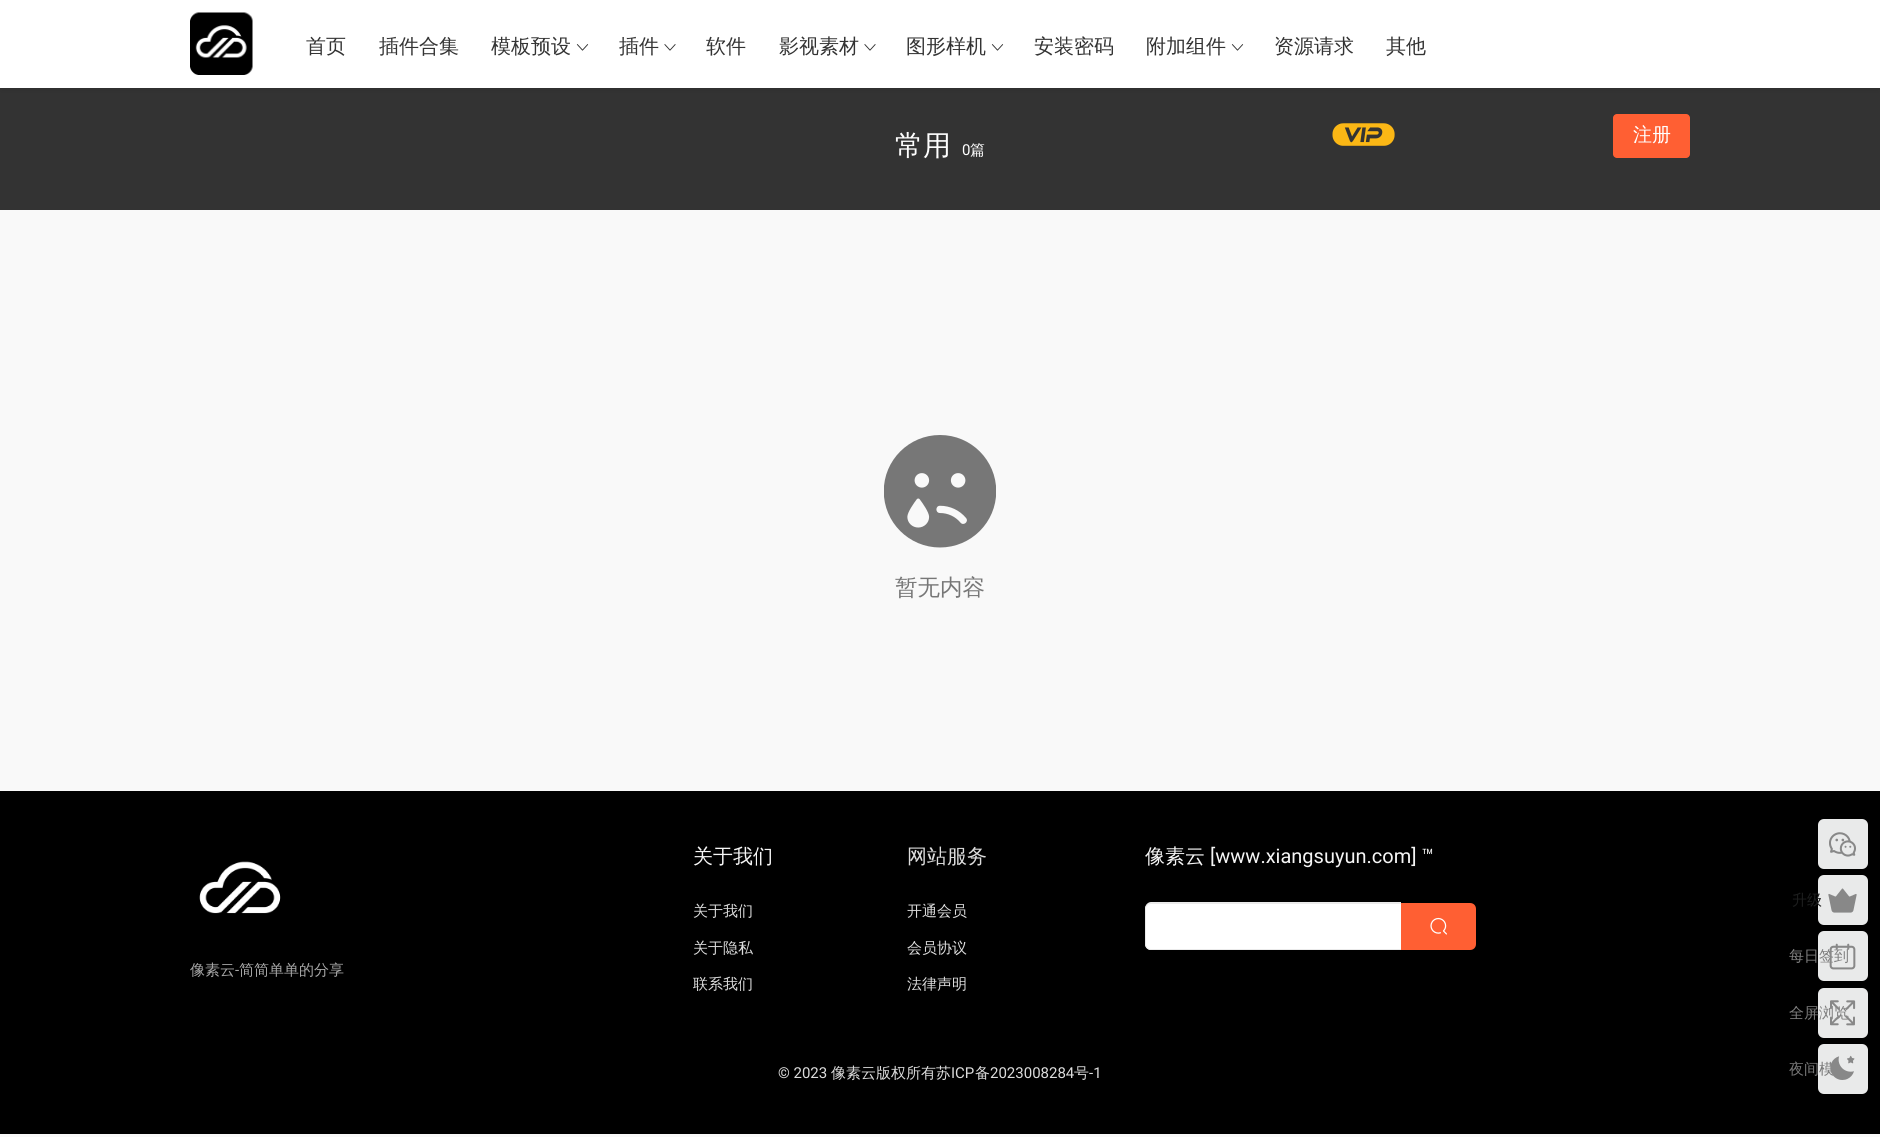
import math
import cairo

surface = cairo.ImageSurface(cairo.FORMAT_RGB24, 1880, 1137)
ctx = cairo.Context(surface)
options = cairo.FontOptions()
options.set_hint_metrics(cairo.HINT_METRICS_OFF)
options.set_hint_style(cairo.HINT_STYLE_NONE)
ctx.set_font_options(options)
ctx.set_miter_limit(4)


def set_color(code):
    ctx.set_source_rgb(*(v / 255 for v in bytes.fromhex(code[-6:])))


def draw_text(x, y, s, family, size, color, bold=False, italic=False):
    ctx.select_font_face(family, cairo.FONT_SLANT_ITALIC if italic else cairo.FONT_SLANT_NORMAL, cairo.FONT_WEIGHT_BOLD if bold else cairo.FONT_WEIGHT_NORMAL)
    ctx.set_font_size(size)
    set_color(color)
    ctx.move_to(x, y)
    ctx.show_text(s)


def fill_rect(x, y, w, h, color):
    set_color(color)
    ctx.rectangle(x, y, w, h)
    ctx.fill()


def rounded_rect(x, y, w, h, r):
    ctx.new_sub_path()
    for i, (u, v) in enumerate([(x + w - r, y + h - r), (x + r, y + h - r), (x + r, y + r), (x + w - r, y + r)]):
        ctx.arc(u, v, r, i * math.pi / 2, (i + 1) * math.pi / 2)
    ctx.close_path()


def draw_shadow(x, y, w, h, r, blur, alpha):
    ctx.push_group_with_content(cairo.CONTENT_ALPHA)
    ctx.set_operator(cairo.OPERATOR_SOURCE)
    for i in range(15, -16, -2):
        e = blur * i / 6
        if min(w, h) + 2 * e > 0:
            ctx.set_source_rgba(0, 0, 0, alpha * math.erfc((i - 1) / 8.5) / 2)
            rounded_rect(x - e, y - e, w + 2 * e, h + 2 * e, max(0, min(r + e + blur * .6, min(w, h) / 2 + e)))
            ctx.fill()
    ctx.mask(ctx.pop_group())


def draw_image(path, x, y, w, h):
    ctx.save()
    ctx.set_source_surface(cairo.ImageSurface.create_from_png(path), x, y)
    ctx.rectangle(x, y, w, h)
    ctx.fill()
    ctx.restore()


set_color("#f9f9f9")
ctx.paint()
fill_rect(0, 88, 1880, 122, "#333333")
set_color("#000000")
draw_shadow(0, 1, 1880, 88, 0, 3, 0.1)
fill_rect(0, 0, 1880, 88, "#ffffff")
draw_image("assets/img1.png", 190, 12, 63, 63)
draw_text(306, 53, "首页", "WenQuanYi Zen Hei Medium", 20, "#333333")
draw_text(379, 53, "插件合集", "WenQuanYi Zen Hei Medium", 20, "#333333")
draw_text(491, 53, "模板预设", "WenQuanYi Zen Hei Medium", 20, "#333333")
draw_image("assets/img2.png", 576, 44, 13, 7)
draw_text(619, 53, "插件", "WenQuanYi Zen Hei Medium", 20, "#333333")
draw_image("assets/img3.png", 664, 44, 12, 7)
draw_text(706, 53, "软件", "WenQuanYi Zen Hei Medium", 20, "#333333")
draw_text(779, 53, "影视素材", "WenQuanYi Zen Hei Medium", 20, "#333333")
draw_image("assets/img3.png", 864, 44, 12, 7)
draw_text(906, 53, "图形样机", "WenQuanYi Zen Hei Medium", 20, "#333333")
draw_image("assets/img2.png", 991, 44, 13, 7)
draw_text(1034, 53, "安装密码", "WenQuanYi Zen Hei Medium", 20, "#333333")
draw_text(1146, 53, "附加组件", "WenQuanYi Zen Hei Medium", 20, "#333333")
draw_image("assets/img2.png", 1231, 44, 13, 7)
draw_text(1274, 53, "资源请求", "WenQuanYi Zen Hei Medium", 20, "#333333")
draw_text(1386, 53, "其他", "WenQuanYi Zen Hei Medium", 20, "#333333")
draw_image("assets/img4.png", 1332, 123, 63, 23)
set_color("#ff5f33")
rounded_rect(1613, 114, 77, 44, 4)
ctx.fill()
draw_text(1633, 141, "注册", "WenQuanYi Zen Hei Medium", 19, "#ffffff")
draw_text(895, 155, "常用", "WenQuanYi Zen Hei Medium", 28, "#ffffff")
draw_text(962, 155, "0", "Roboto", 15, "#ffffff")
draw_text(970, 155, "篇", "WenQuanYi Zen Hei Medium", 15, "#ffffff")
draw_image("assets/img5.png", 884, 435, 112, 113)
draw_text(895, 595, "暂无内容", "WenQuanYi Zen Hei Medium", 22.5, "#777777")
fill_rect(0, 791, 1880, 343, "#000000")
draw_text(693, 863, "关于我们", "WenQuanYi Zen Hei Medium", 20, "#f5f5f5")
draw_text(693, 916, "关于我们", "WenQuanYi Zen Hei Medium", 15, "#dcdcdc")
draw_text(693, 953, "关于隐私", "WenQuanYi Zen Hei Medium", 15, "#dcdcdc")
draw_text(693, 989, "联系我们", "WenQuanYi Zen Hei Medium", 15, "#dcdcdc")
draw_text(907, 863, "网站服务", "WenQuanYi Zen Hei Medium", 20, "#dcdcdc")
draw_text(907, 916, "开通会员", "WenQuanYi Zen Hei Medium", 15, "#dcdcdc")
draw_text(907, 953, "会员协议", "WenQuanYi Zen Hei Medium", 15, "#dcdcdc")
draw_text(907, 989, "法律声明", "WenQuanYi Zen Hei Medium", 15, "#dcdcdc")
draw_text(1145, 863, "像素云", "WenQuanYi Zen Hei Medium", 20, "#f5f5f5")
draw_text(1210, 863, "[www.xiangsuyun.com] ™", "Roboto", 20, "#f5f5f5")
set_color("#ffffff")
ctx.new_path()
ctx.move_to(1151, 903)
ctx.line_to(1401, 903)
ctx.line_to(1401, 950)
ctx.line_to(1151, 950)
ctx.curve_to(1147.5, 950, 1145, 947.5, 1145, 944)
ctx.line_to(1145, 909)
ctx.curve_to(1145, 905.5, 1147.5, 903, 1151, 903)
ctx.close_path()
ctx.fill()
set_color("#eaeaea")
ctx.set_fill_rule(cairo.FILL_RULE_EVEN_ODD)
ctx.new_path()
ctx.move_to(1151, 902)
ctx.line_to(1401, 902)
ctx.line_to(1401, 950)
ctx.line_to(1151, 950)
ctx.curve_to(1148, 950, 1145, 947, 1145, 944)
ctx.line_to(1145, 909)
ctx.curve_to(1145, 905, 1148, 902, 1151, 902)
ctx.close_path()
ctx.move_to(1151, 904)
ctx.line_to(1401, 904)
ctx.line_to(1401, 949)
ctx.line_to(1151, 949)
ctx.curve_to(1148, 949, 1146, 947, 1146, 944)
ctx.line_to(1146, 909)
ctx.curve_to(1146, 906, 1148, 904, 1151, 904)
ctx.close_path()
ctx.fill()
set_color("#ff5f33")
ctx.new_path()
ctx.move_to(1401, 903)
ctx.line_to(1470, 903)
ctx.curve_to(1473.5, 903, 1476, 905.5, 1476, 909)
ctx.line_to(1476, 944)
ctx.curve_to(1476, 947.5, 1473.5, 950, 1470, 950)
ctx.line_to(1401, 950)
ctx.close_path()
ctx.fill()
draw_image("assets/img6.png", 1430, 917, 17, 18)
draw_image("assets/img7.png", 199, 861, 82, 53)
draw_text(190, 975, "像素云", "WenQuanYi Zen Hei Medium", 15, "#a7a7a7")
draw_text(235, 975, "-", "Roboto", 15, "#a7a7a7")
draw_text(239, 975, "简简单单的分享", "WenQuanYi Zen Hei Medium", 15, "#a7a7a7")
draw_text(778, 1078, "© 2023", "Roboto", 15, "#dcdcdc")
draw_text(831, 1078, "像素云版权所有苏", "WenQuanYi Zen Hei Medium", 15, "#dcdcdc")
draw_text(951, 1078, "ICP", "Roboto", 15, "#dcdcdc")
draw_text(975, 1078, "备", "WenQuanYi Zen Hei Medium", 15, "#dcdcdc")
draw_text(990, 1078, "2023008284", "Roboto", 15, "#dcdcdc")
draw_text(1074, 1078, "号", "WenQuanYi Zen Hei Medium", 15, "#dcdcdc")
draw_text(1089, 1078, "-1", "Roboto", 15, "#dcdcdc")
set_color("#e9eaea")
rounded_rect(1818, 819, 50, 50, 6)
ctx.fill()
draw_image("assets/img8.png", 1829, 832, 27, 25)
rounded_rect(1818, 875, 50, 50, 6)
ctx.fill()
draw_text(1792, 905, "升级", "WenQuanYi Zen Hei Medium", 15, "#1d1e1e")
draw_image("assets/img9.png", 1828, 888, 29, 25)
set_color("#e9eaea")
rounded_rect(1818, 931, 50, 50, 6)
ctx.fill()
draw_text(1789, 961, "每日签到", "WenQuanYi Zen Hei Medium", 15, "#7e7e7e")
draw_image("assets/img10.png", 1829, 943, 27, 27)
set_color("#e9eaea")
rounded_rect(1818, 988, 50, 50, 6)
ctx.fill()
draw_text(1789, 1018, "全屏浏览", "WenQuanYi Zen Hei Medium", 15, "#7e7e7e")
draw_image("assets/img11.png", 1830, 1000, 26, 26)
set_color("#e9eaea")
rounded_rect(1818, 1044, 50, 50, 6)
ctx.fill()
draw_text(1789, 1074, "夜间模", "WenQuanYi Zen Hei Medium", 15, "#777777")
draw_image("assets/img12.png", 1830, 1055, 25, 25)
surface.write_to_png("output.png")
